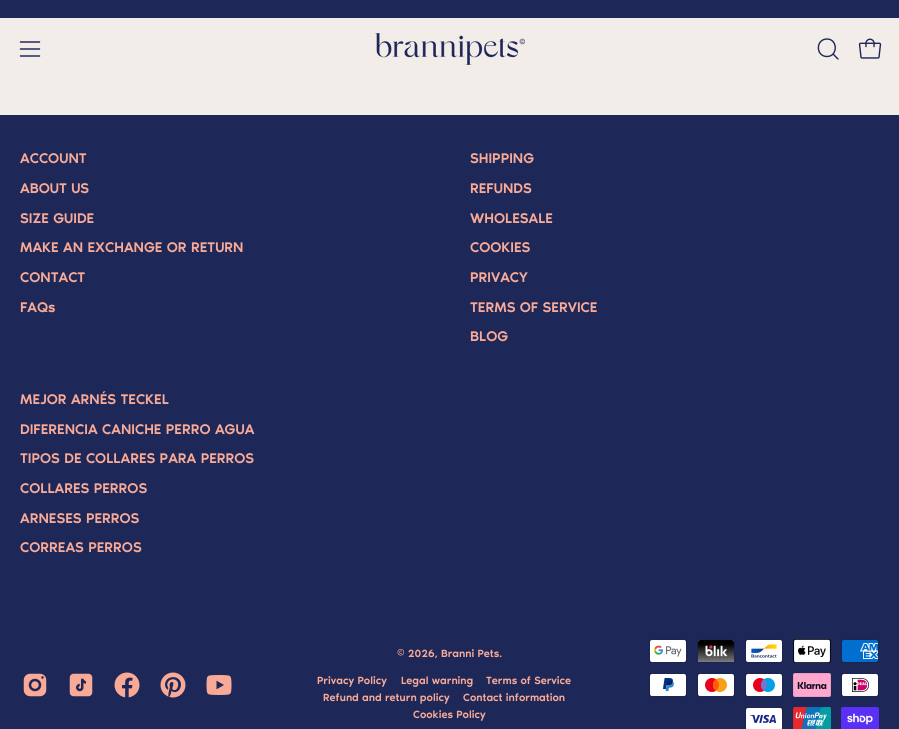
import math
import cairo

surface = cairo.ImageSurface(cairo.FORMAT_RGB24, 899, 729)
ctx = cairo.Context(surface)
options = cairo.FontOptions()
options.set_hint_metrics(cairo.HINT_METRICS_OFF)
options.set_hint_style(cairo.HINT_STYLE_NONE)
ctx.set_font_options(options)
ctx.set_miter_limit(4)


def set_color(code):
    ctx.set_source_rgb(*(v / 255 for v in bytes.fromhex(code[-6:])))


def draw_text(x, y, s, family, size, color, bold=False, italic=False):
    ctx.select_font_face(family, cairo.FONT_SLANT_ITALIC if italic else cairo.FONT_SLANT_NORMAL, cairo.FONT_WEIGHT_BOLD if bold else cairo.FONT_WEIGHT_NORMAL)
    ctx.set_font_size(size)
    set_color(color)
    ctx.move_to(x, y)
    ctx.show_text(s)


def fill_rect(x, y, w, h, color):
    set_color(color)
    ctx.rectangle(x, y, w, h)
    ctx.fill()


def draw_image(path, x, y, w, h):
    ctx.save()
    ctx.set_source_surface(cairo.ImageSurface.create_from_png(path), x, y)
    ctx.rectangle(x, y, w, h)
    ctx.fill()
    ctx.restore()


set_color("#f2ede9")
ctx.paint()
fill_rect(0, 0, 899, 18, "#1d2758")
ctx.new_path()
ctx.move_to(20.5, 49)
ctx.line_to(39.5, 49)
ctx.move_to(20.5, 42)
ctx.line_to(39.5, 42)
ctx.move_to(20.5, 56)
ctx.line_to(39.5, 56)
ctx.set_line_width(1.5)
ctx.set_line_cap(cairo.LINE_CAP_ROUND)
ctx.set_line_join(cairo.LINE_JOIN_ROUND)
ctx.stroke()
draw_image("assets/img1.png", 375, 33, 150, 32)
ctx.new_path()
ctx.move_to(827, 56.5)
ctx.curve_to(838, 56.5, 838, 39, 827, 39)
ctx.curve_to(815.5, 39, 815.5, 56.5, 827, 56.5)
ctx.close_path()
ctx.move_to(833, 54)
ctx.line_to(838, 59)
ctx.set_line_width(1.4)
ctx.stroke()
draw_image("assets/img2.png", 858, 38, 24, 21)
fill_rect(0, 115, 899, 614, "#1d2758")
draw_text(20, 163, "ACCOUNT", "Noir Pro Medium", 14.4, "#f8aa97")
draw_text(20, 193, "ABOUT US", "Noir Pro Medium", 14.4, "#f8aa97")
draw_text(20, 223, "SIZE GUIDE", "Noir Pro Medium", 14.4, "#f8aa97")
draw_text(20, 252, "MAKE AN EXCHANGE OR RETURN", "Noir Pro Medium", 14.4, "#f8aa97")
draw_text(20, 282, "CONTACT", "Noir Pro Medium", 14.4, "#f8aa97")
draw_text(20, 312, "FAQs", "Noir Pro Medium", 14.4, "#f8aa97")
draw_text(470, 163, "SHIPPING", "Noir Pro Medium", 14.4, "#f8aa97")
draw_text(470, 193, "REFUNDS", "Noir Pro Medium", 14.4, "#f8aa97")
draw_text(470, 223, "WHOLESALE", "Noir Pro Medium", 14.4, "#f8aa97")
draw_text(470, 252, "COOKIES", "Noir Pro Medium", 14.4, "#f8aa97")
draw_text(470, 282, "PRIVACY", "Noir Pro Medium", 14.4, "#f8aa97")
draw_text(470, 312, "TERMS OF SERVICE", "Noir Pro Medium", 14.4, "#f8aa97")
draw_text(470, 341, "BLOG", "Noir Pro Medium", 14.4, "#f8aa97")
draw_text(20, 404, "MEJOR ARNÉS TECKEL", "Noir Pro Medium", 14.4, "#f8aa97")
draw_text(20, 434, "DIFERENCIA CANICHE PERRO AGUA", "Noir Pro Medium", 14.4, "#f8aa97")
draw_text(20, 463, "TIPOS DE COLLARES PARA PERROS", "Noir Pro Medium", 14.4, "#f8aa97")
draw_text(20, 493, "COLLARES PERROS", "Noir Pro Medium", 14.4, "#f8aa97")
draw_text(20, 523, "ARNESES PERROS", "Noir Pro Medium", 14.4, "#f8aa97")
draw_text(20, 552, "CORREAS PERROS", "Noir Pro Medium", 14.4, "#f8aa97")
draw_image("assets/img3.png", 23, 673, 24, 24)
draw_image("assets/img4.png", 69, 673, 24, 24)
draw_image("assets/img5.png", 114, 672, 26, 26)
draw_image("assets/img6.png", 160, 672, 26, 26)
draw_image("assets/img7.png", 206, 675, 26, 20)
draw_text(397, 657, "© 2026, Branni Pets.", "Noir Pro Medium", 10.75, "#f8aa97")
draw_text(317, 684, "Privacy Policy", "Noir Pro Medium", 10.75, "#f8aa97")
draw_text(401, 684, "Legal warning", "Noir Pro Medium", 10.75, "#f8aa97")
draw_text(486, 684, "Terms of Service", "Noir Pro Medium", 10.75, "#f8aa97")
draw_text(323, 701, "Refund and return policy", "Noir Pro Medium", 10.75, "#f8aa97")
draw_text(463, 701, "Contact information", "Noir Pro Medium", 10.75, "#f8aa97")
draw_text(413, 718, "Cookies Policy", "Noir Pro Medium", 10.75, "#f8aa97")
draw_image("assets/img8.png", 649, 639, 38, 24)
draw_image("assets/img9.png", 697, 639, 38, 24)
draw_image("assets/img10.png", 745, 639, 38, 24)
draw_image("assets/img11.png", 793, 639, 38, 24)
draw_image("assets/img12.png", 841, 639, 38, 24)
draw_image("assets/img13.png", 649, 673, 38, 24)
draw_image("assets/img14.png", 697, 673, 38, 24)
draw_image("assets/img15.png", 745, 673, 38, 24)
draw_image("assets/img16.png", 793, 673, 38, 24)
draw_image("assets/img17.png", 841, 673, 38, 24)
draw_image("assets/img18.png", 745, 707, 38, 22)
draw_image("assets/img19.png", 793, 707, 38, 22)
draw_image("assets/img20.png", 841, 707, 38, 22)
surface.write_to_png("output.png")
